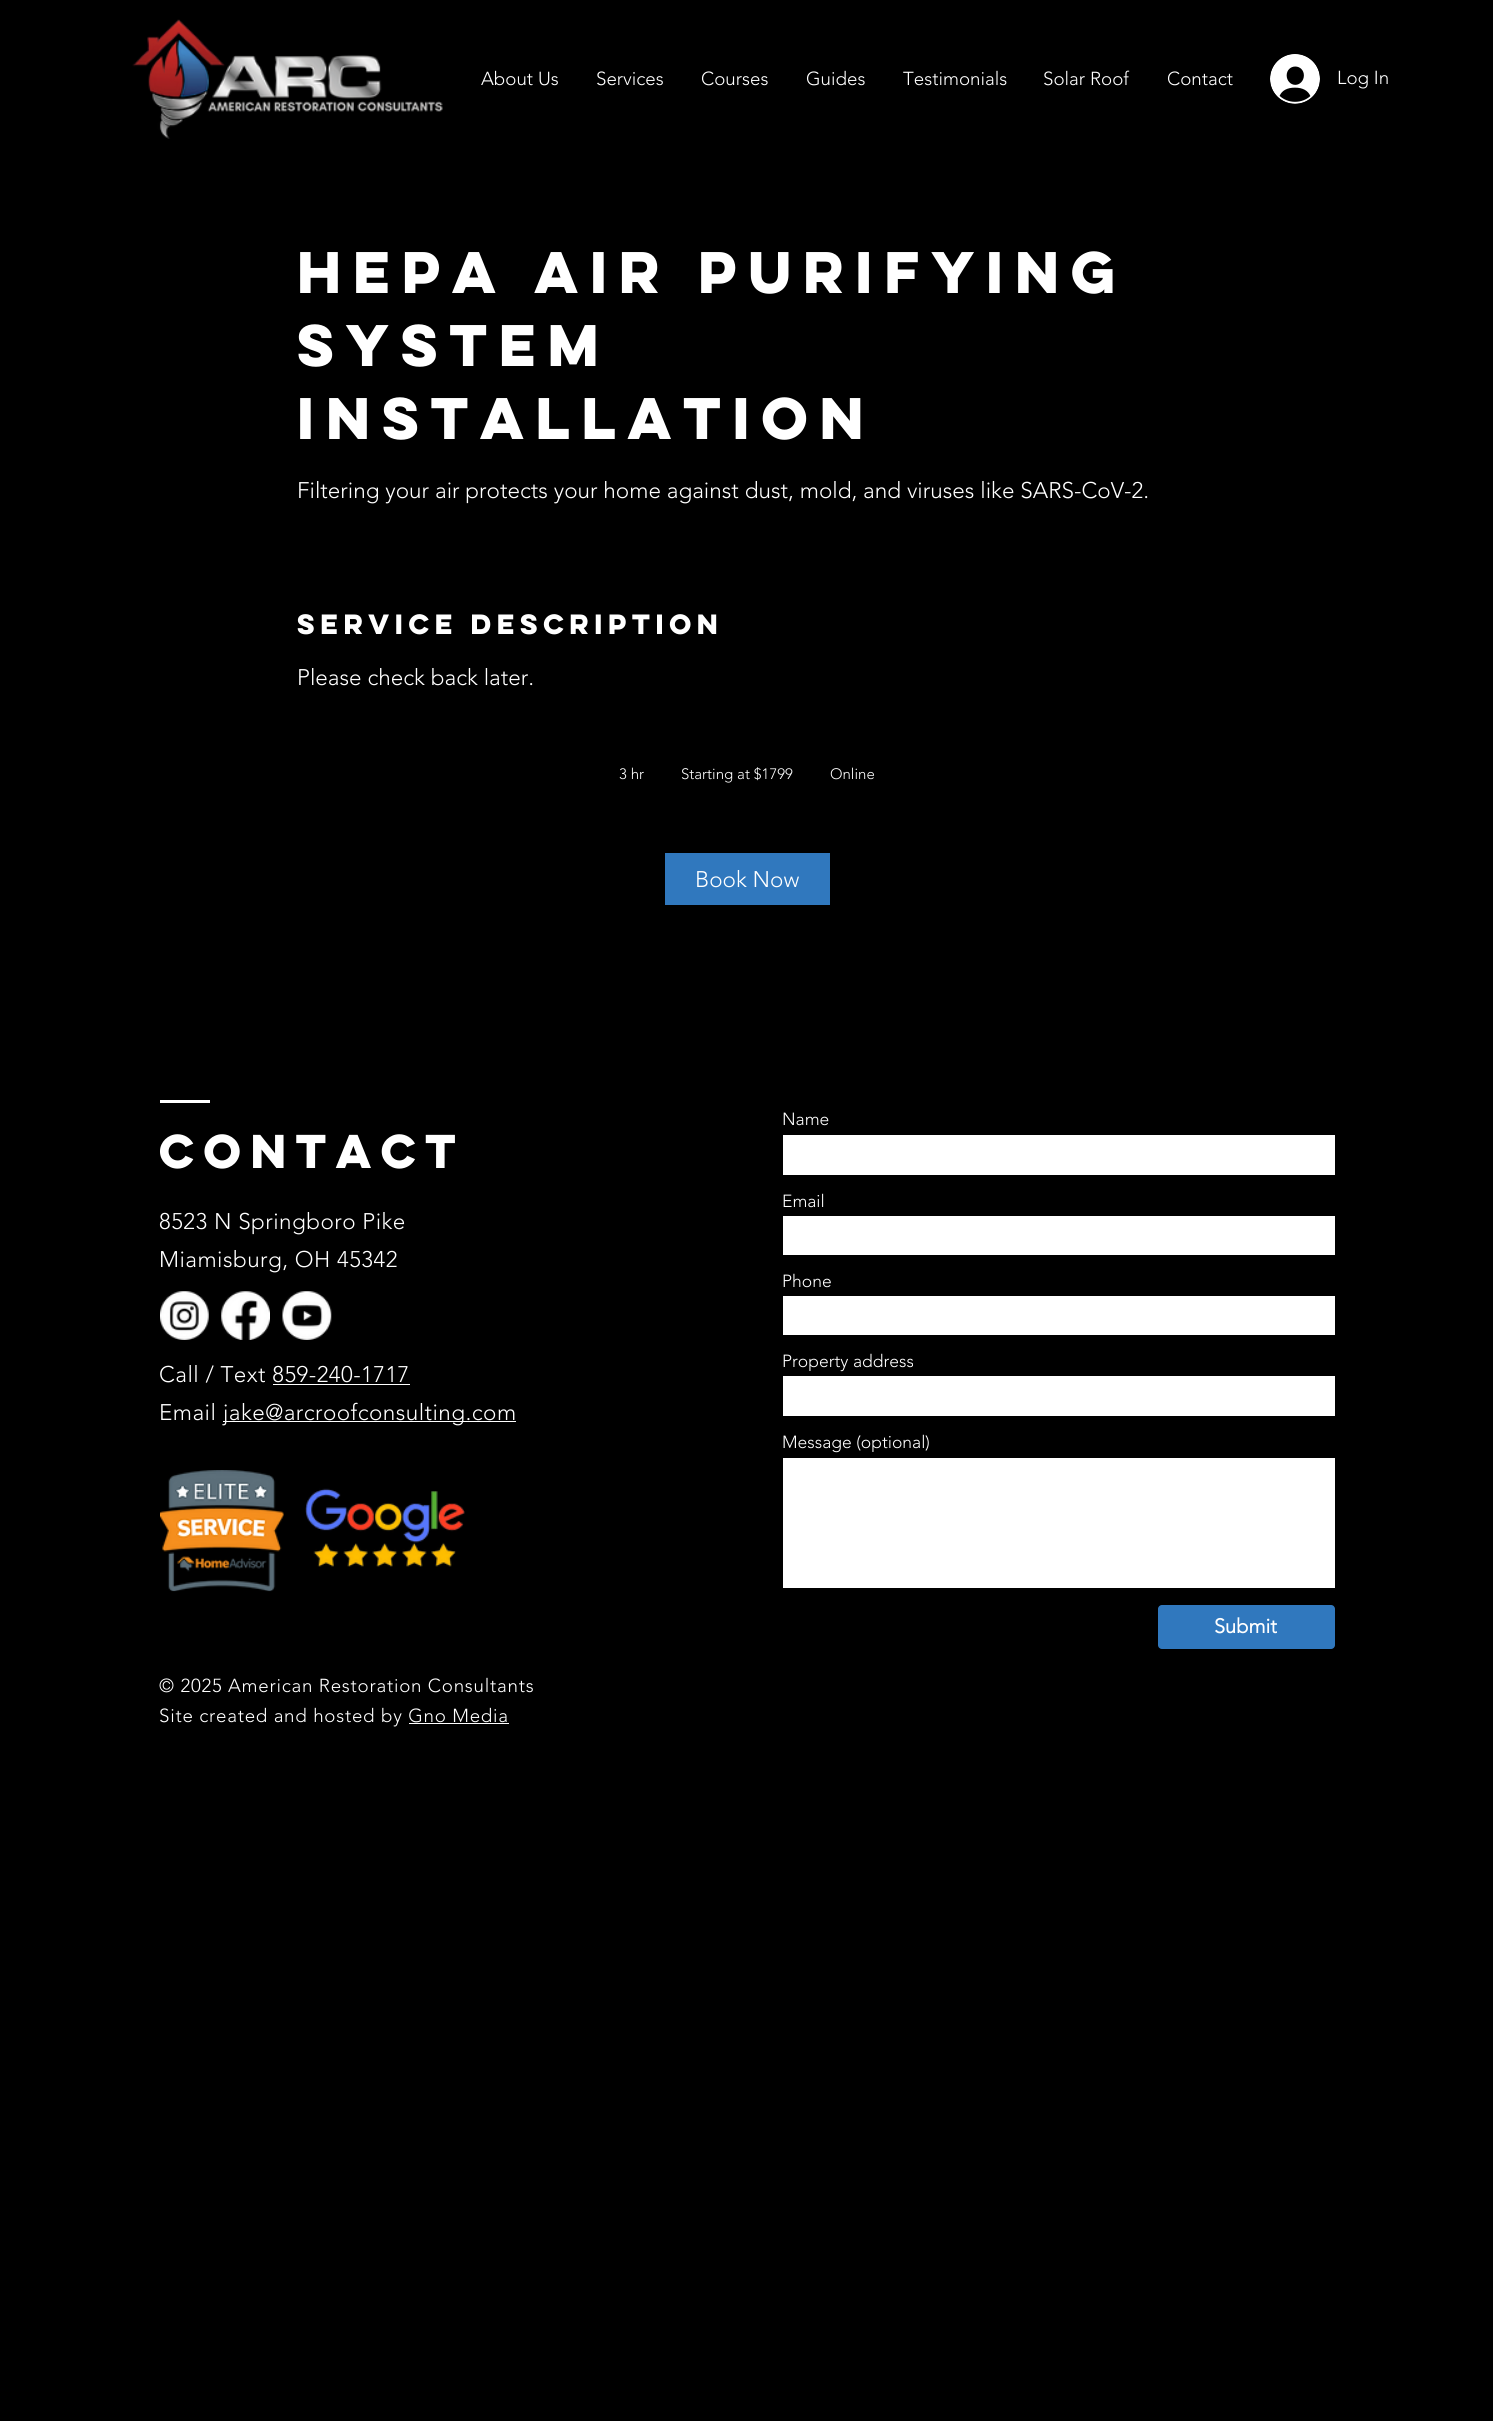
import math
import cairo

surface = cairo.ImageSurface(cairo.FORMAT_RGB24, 1493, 2421)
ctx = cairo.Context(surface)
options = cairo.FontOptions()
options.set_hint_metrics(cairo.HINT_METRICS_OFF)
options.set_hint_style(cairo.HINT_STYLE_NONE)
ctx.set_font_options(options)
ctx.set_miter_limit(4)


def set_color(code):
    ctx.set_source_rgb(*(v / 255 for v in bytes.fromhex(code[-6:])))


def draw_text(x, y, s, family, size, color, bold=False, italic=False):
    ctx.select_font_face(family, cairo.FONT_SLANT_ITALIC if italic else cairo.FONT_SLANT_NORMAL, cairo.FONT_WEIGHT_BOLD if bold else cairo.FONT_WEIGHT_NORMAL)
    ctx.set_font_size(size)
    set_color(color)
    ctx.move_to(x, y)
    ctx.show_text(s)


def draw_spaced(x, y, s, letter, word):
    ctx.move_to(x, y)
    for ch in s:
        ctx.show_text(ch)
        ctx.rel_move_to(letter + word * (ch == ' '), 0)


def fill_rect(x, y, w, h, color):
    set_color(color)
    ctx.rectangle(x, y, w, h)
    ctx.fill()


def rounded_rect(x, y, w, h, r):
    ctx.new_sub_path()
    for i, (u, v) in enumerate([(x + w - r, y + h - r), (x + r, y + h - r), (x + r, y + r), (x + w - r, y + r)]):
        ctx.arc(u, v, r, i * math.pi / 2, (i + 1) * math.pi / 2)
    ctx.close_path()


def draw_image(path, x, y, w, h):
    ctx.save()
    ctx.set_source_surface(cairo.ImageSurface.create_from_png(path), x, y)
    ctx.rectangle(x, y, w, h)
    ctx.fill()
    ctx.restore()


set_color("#000000")
ctx.paint()
draw_image("assets/img1.png", 132, 19, 311, 120)
draw_text(481, 85, "About Us", "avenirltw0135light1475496 Light", 18.75, "#ffffff")
draw_text(596, 85, "Services", "avenirltw0135light1475496 Light", 18.75, "#ffffff")
draw_text(701, 85, "Courses", "avenirltw0135light1475496 Light", 18.75, "#ffffff")
draw_text(806, 85, "Guides", "avenirltw0135light1475496 Light", 18.75, "#ffffff")
draw_text(903, 85, "Testimonials", "avenirltw0135light1475496 Light", 18.75, "#ffffff")
draw_text(1043, 85, "Solar Roof", "avenirltw0135light1475496 Light", 18.75, "#ffffff")
draw_text(1167, 85, "Contact", "avenirltw0135light1475496 Light", 18.75, "#ffffff")
draw_image("assets/img2.png", 1270, 54, 50, 50)
draw_text(1337, 84, "Log In", "avenirltw0135light1475496 Light", 18.75, "#ffffff")
draw_text(297, 293, "HEPA Air Purifying", "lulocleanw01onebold", 52.5, "#ffffff", bold=True)
draw_text(297, 366, "System", "lulocleanw01onebold", 52.5, "#ffffff", bold=True)
draw_text(297, 439, "Installation", "lulocleanw01onebold", 52.5, "#ffffff", bold=True)
draw_text(297, 498, "Filtering your air protects your home against dust, mold, and viruses like SARS-CoV-2.", "avenirltw0135light1475496 Light", 22.5, "#ffffff")
draw_text(297, 634, "Service Description", "lulocleanw01onebold", 25, "#ffffff", bold=True)
draw_text(297, 685, "Please check back later.", "avenirltw0135light1475496 Light", 22.5, "#ffffff")
draw_text(619, 779, "3 hr", "avenirltw0135light1475496 Light", 15, "#ffffff")
draw_text(681, 779, "Starting at $1799", "avenirltw0135light1475496 Light", 15, "#ffffff")
draw_text(830, 779, "Online", "avenirltw0135light1475496 Light", 15, "#ffffff")
fill_rect(665, 853, 165, 52, "#3078be")
draw_text(695, 887, "Book Now", "avenirltw0135light1475496 Light", 22.5, "#ffffff")
fill_rect(160, 1100, 50, 3, "#ffffff")
draw_text(159, 1168, "Contact", "lulocleanw01onebold", 42.5, "#ffffff", bold=True)
draw_text(782, 1125, "Name", "avenirltw0135light1475496 Light", 17.5, "#ffffff")
fill_rect(783, 1135, 552, 40, "#ffffff")
draw_text(782, 1207, "Email", "avenirltw0135light1475496 Light", 17.5, "#ffffff")
fill_rect(783, 1216, 552, 39, "#ffffff")
draw_text(782, 1287, "Phone", "avenirltw0135light1475496 Light", 17.5, "#ffffff")
fill_rect(783, 1296, 552, 39, "#ffffff")
draw_text(782, 1367, "Property address", "avenirltw0135light1475496 Light", 17.5, "#ffffff")
fill_rect(783, 1376, 552, 40, "#ffffff")
draw_text(782, 1448, "Message (optional)", "avenirltw0135light1475496 Light", 17.5, "#ffffff")
fill_rect(783, 1458, 552, 130, "#ffffff")
set_color("#3078be")
rounded_rect(1158, 1605, 177, 44, 4)
ctx.fill()
draw_text(1214, 1633, "Submit", "avenirltw0135light1475496", 20, "#ffffff", bold=True)
ctx.select_font_face("avenirltw0135light1475496 Light")
ctx.set_font_size(22.5)
draw_spaced(159, 1229, "8523 N Springboro Pike", 0.45, 0)
draw_spaced(159, 1267, "Miamisburg, OH 45342", 0.45, 0)
draw_spaced(159, 1382, "Call / Text 859-240-1717", 0.45, 0)
fill_rect(273, 1384, 137, 1, "#ffffff")
draw_spaced(159, 1420, "Email", 0.45, 0)
fill_rect(223, 1421, 293, 1, "#ffffff")
draw_spaced(223, 1420, "jake@arcroofconsulting.com", 0.45, 0)
draw_image("assets/img3.png", 160, 1291, 49, 49)
draw_image("assets/img4.png", 221, 1291, 49, 49)
draw_image("assets/img5.png", 282, 1291, 50, 49)
draw_image("assets/img6.png", 160, 1470, 124, 122)
draw_image("assets/img7.png", 305, 1488, 160, 79)
ctx.set_font_size(18.75)
draw_spaced(159, 1692, "© 2025 American Restoration Consultants", 0.75, 0)
draw_spaced(159, 1722, "Site created and hosted by Gno Media", 0.75, 0)
fill_rect(409, 1723, 100, 1, "#ffffff")
surface.write_to_png("output.png")
